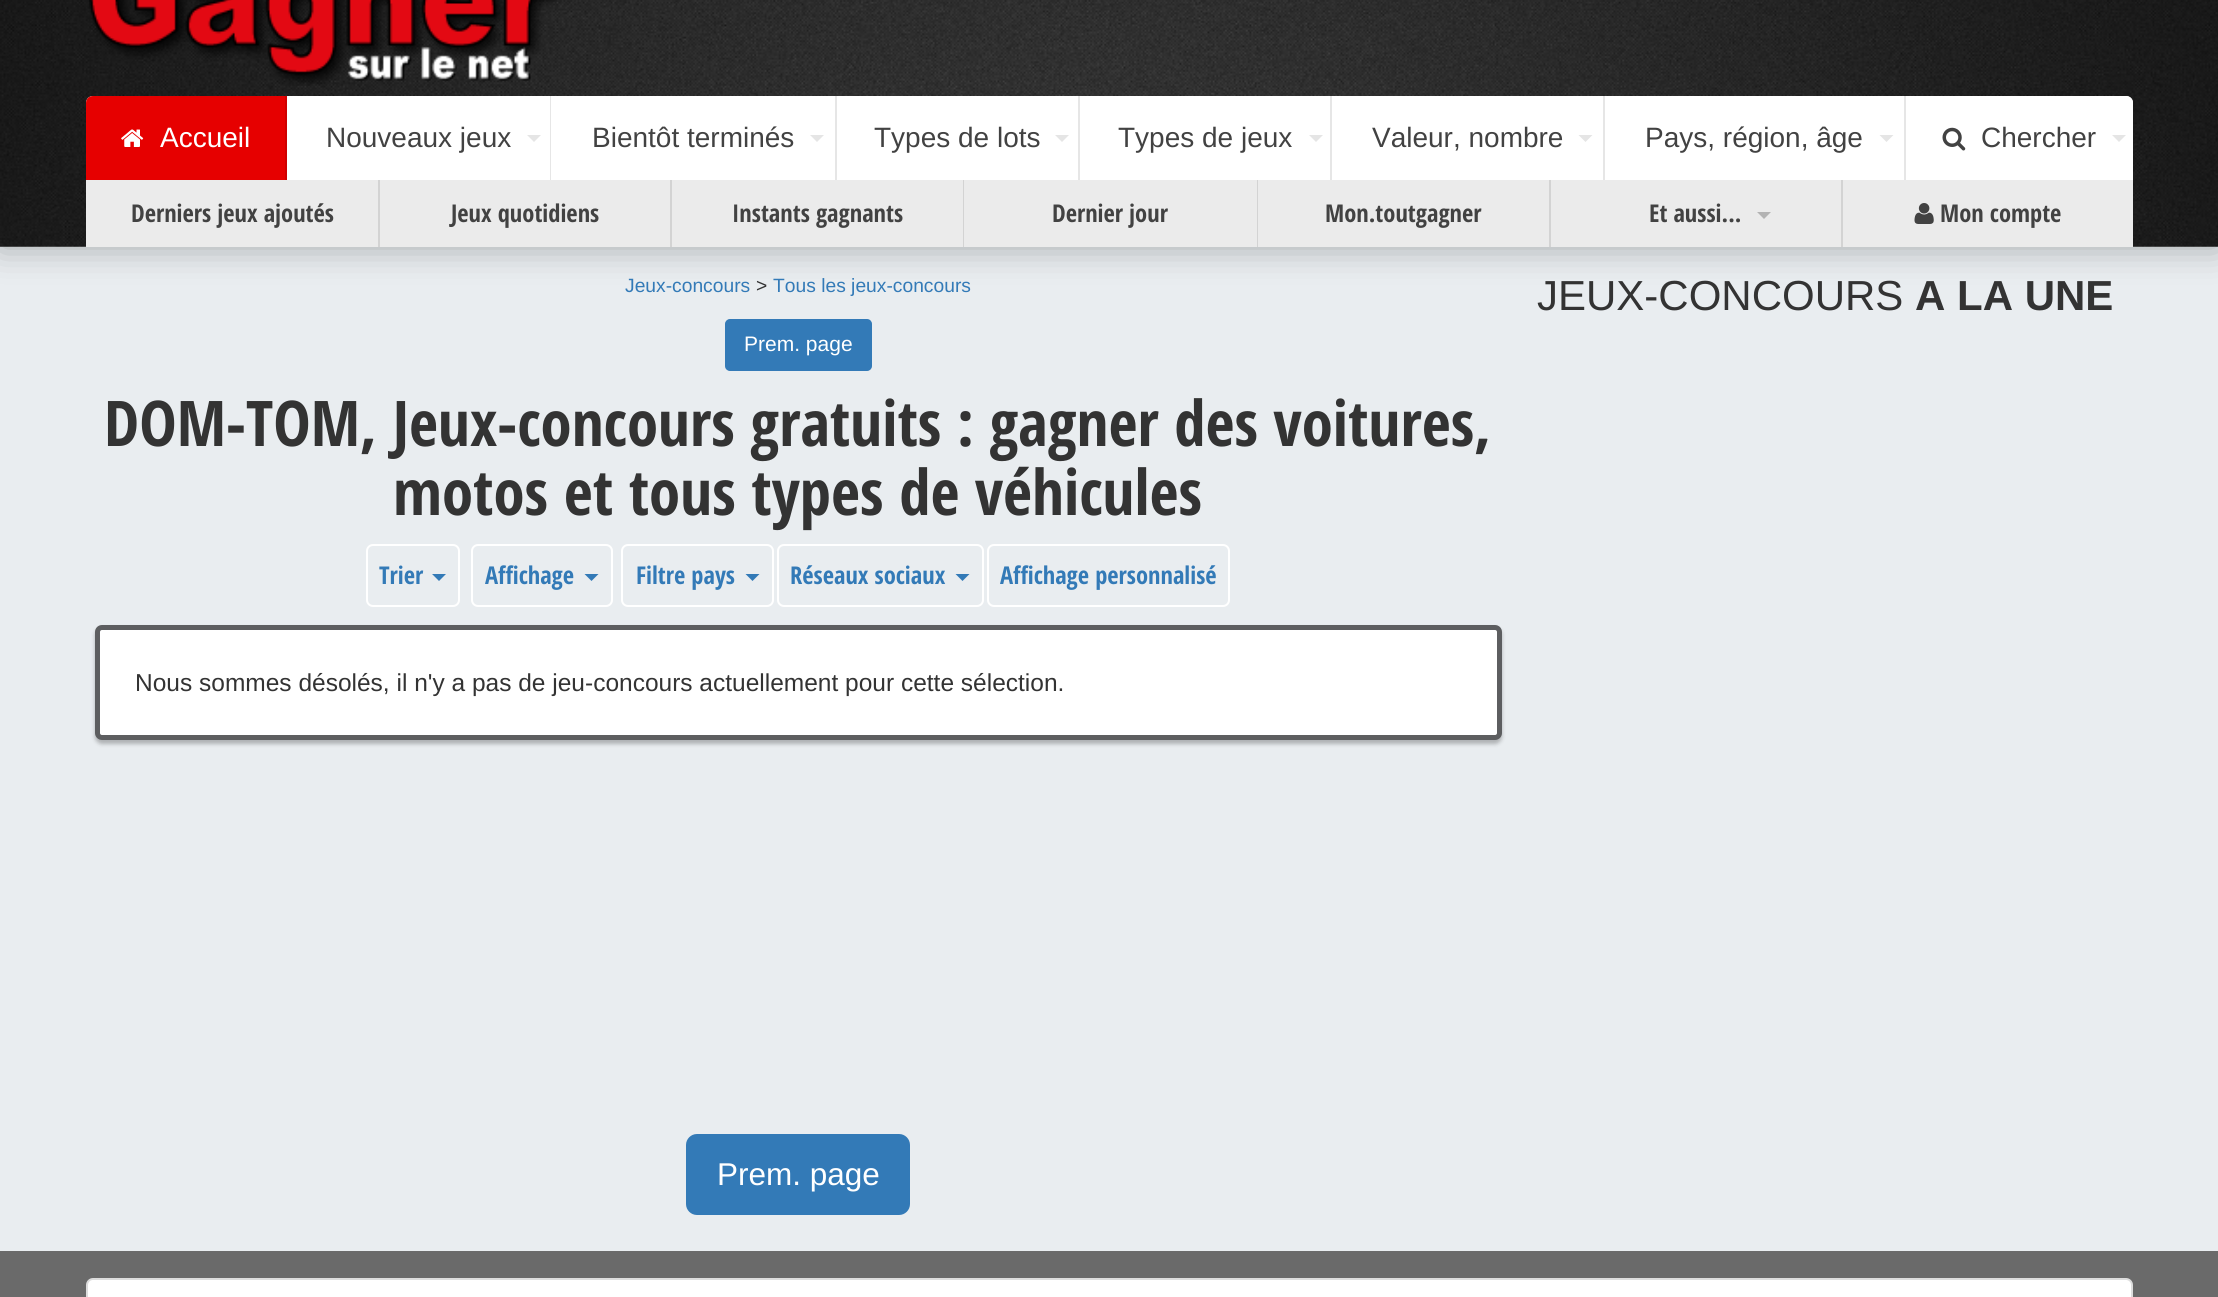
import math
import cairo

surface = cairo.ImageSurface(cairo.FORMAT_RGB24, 2218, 1297)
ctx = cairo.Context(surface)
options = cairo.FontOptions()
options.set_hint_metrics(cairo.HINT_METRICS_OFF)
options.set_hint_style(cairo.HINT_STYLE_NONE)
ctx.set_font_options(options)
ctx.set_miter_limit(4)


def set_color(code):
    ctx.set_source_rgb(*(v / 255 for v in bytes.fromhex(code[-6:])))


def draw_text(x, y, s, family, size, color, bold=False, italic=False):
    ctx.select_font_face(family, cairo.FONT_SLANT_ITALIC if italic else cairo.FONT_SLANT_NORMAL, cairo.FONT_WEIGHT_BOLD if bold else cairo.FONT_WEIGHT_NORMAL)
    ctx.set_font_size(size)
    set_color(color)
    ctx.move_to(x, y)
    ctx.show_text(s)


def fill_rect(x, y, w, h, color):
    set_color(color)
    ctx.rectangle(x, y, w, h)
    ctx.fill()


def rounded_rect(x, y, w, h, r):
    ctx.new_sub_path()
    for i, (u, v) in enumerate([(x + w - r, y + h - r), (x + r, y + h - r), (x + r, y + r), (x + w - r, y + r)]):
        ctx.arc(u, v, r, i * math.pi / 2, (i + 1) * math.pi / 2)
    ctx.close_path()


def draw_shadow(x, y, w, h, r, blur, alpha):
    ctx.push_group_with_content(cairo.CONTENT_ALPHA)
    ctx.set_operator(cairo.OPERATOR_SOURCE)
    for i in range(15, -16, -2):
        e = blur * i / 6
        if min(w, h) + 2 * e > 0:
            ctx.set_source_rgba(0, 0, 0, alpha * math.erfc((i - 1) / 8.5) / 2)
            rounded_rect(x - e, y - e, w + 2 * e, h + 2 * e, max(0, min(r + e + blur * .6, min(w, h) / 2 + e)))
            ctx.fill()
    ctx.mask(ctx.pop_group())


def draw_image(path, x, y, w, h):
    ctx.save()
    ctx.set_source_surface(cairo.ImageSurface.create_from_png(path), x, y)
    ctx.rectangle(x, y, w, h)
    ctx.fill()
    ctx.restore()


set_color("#e9edf0")
ctx.paint()
set_color("#000000")
draw_shadow(0, -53, 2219, 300, 0, 17.5, 0.3)
draw_image("assets/img1.png", 0, 0, 2218, 247)
draw_image("assets/img2.png", 89, 0, 468, 86)
set_color("#ffffff")
ctx.new_path()
ctx.move_to(93, 96)
ctx.line_to(2126, 96)
ctx.curve_to(2130, 96, 2133, 99, 2133, 103)
ctx.line_to(2133, 180)
ctx.line_to(86, 180)
ctx.line_to(86, 103)
ctx.curve_to(86, 99, 89, 96, 93, 96)
ctx.close_path()
ctx.fill()
set_color("#e60000")
ctx.new_path()
ctx.move_to(93, 96)
ctx.line_to(287, 96)
ctx.line_to(287, 180)
ctx.line_to(86, 180)
ctx.line_to(86, 103)
ctx.curve_to(86, 99, 89, 96, 93, 96)
ctx.close_path()
ctx.fill()
fill_rect(285, 96, 2, 84, "#cf0000")
draw_image("assets/img3.png", 121, 129, 23, 18)
draw_text(160, 147, "Accueil", "Liberation Sans", 28, "#ffffff")
fill_rect(550, 96, 1, 84, "#e6e6e6")
draw_text(326, 147, "Nouveaux jeux", "Liberation Sans", 28, "#424242")
set_color("#e5e5e5")
ctx.new_path()
ctx.move_to(527, 135)
ctx.line_to(541, 135)
ctx.line_to(534, 142)
ctx.close_path()
ctx.fill()
fill_rect(835, 96, 2, 84, "#e6e6e6")
draw_text(592, 147, "Bientôt terminés", "Liberation Sans", 28, "#424242")
set_color("#e5e5e5")
ctx.new_path()
ctx.move_to(810, 135)
ctx.line_to(824, 135)
ctx.line_to(817, 142)
ctx.close_path()
ctx.fill()
fill_rect(1078, 96, 2, 84, "#e6e6e6")
draw_text(874, 147, "Types de lots", "Liberation Sans", 28, "#424242")
set_color("#e5e5e5")
ctx.new_path()
ctx.move_to(1055, 135)
ctx.line_to(1069, 135)
ctx.line_to(1062, 142)
ctx.close_path()
ctx.fill()
fill_rect(1330, 96, 2, 84, "#e6e6e6")
draw_text(1118, 147, "Types de jeux", "Liberation Sans", 28, "#424242")
set_color("#e5e5e5")
ctx.new_path()
ctx.move_to(1309, 135)
ctx.line_to(1323, 135)
ctx.line_to(1316, 142)
ctx.close_path()
ctx.fill()
fill_rect(1603, 96, 2, 84, "#e6e6e6")
draw_text(1372, 147, "Valeur, nombre", "Liberation Sans", 28, "#424242")
set_color("#e5e5e5")
ctx.new_path()
ctx.move_to(1578.5, 135)
ctx.line_to(1592.5, 135)
ctx.line_to(1585.5, 142)
ctx.close_path()
ctx.fill()
fill_rect(1904, 96, 2, 84, "#e6e6e6")
draw_text(1645, 147, "Pays, région, âge", "Liberation Sans", 28, "#424242")
set_color("#e5e5e5")
ctx.new_path()
ctx.move_to(1879.5, 135)
ctx.line_to(1893.5, 135)
ctx.line_to(1886.5, 142)
ctx.close_path()
ctx.fill()
set_color("#ffffff")
ctx.new_path()
ctx.move_to(1906, 96)
ctx.line_to(2126, 96)
ctx.curve_to(2130, 96, 2133, 99, 2133, 103)
ctx.line_to(2133, 180)
ctx.line_to(1906, 180)
ctx.close_path()
ctx.fill()
draw_image("assets/img4.png", 1942, 127, 24, 24)
draw_text(1981, 147, "Chercher", "Liberation Sans", 28, "#424242")
set_color("#e5e5e5")
ctx.new_path()
ctx.move_to(2112, 135)
ctx.line_to(2126, 135)
ctx.line_to(2119, 142)
ctx.close_path()
ctx.fill()
fill_rect(86, 180, 292, 67, "#ebebeb")
draw_text(131, 222, "Derniers jeux ajoutés", "Open Sans Condensed", 24.5, "#424242", bold=True)
fill_rect(378, 180, 2, 67, "#d3d3d3")
fill_rect(380, 180, 290, 67, "#ebebeb")
draw_text(451, 222, "Jeux quotidiens", "Open Sans Condensed", 24.5, "#424242", bold=True)
fill_rect(670, 180, 2, 67, "#d3d3d3")
fill_rect(672, 180, 291, 67, "#ebebeb")
draw_text(732, 222, "Instants gagnants", "Open Sans Condensed", 24.5, "#424242", bold=True)
fill_rect(963, 180, 1, 67, "#d3d3d3")
fill_rect(964, 180, 293, 67, "#ebebeb")
draw_text(1052, 222, "Dernier jour", "Open Sans Condensed", 24.5, "#424242", bold=True)
fill_rect(1257, 180, 1, 67, "#d3d3d3")
fill_rect(1258, 180, 291, 67, "#ebebeb")
draw_text(1325, 222, "Mon.toutgagner", "Open Sans Condensed", 24.5, "#424242", bold=True)
fill_rect(1549, 180, 2, 67, "#d3d3d3")
fill_rect(1551, 180, 290, 67, "#ebebeb")
draw_text(1649, 222, "Et aussi...", "Open Sans Condensed", 24.5, "#424242", bold=True)
set_color("#b3b3b3")
ctx.new_path()
ctx.move_to(1757, 212)
ctx.line_to(1771, 212)
ctx.line_to(1764, 219)
ctx.close_path()
ctx.fill()
fill_rect(1841, 180, 2, 67, "#d3d3d3")
fill_rect(1843, 180, 290, 67, "#ebebeb")
draw_image("assets/img5.png", 1914, 203, 20, 21)
draw_text(1940, 222, "Mon compte", "Open Sans Condensed", 24.5, "#424242", bold=True)
draw_text(625, 292, "Jeux-concours", "Liberation Sans", 19.25, "#337ab7")
draw_text(756, 292, ">", "Liberation Sans", 19.25, "#333333")
draw_text(773, 292, "Tous les jeux-concours", "Liberation Sans", 19.25, "#337ab7")
rounded_rect(726, 320, 145, 50, 4)
ctx.fill_preserve()
ctx.stroke()
draw_text(744, 351, "Prem. page", "Liberation Sans", 21, "#ffffff")
draw_text(104, 446, "DOM-TOM, Jeux-concours gratuits : gagner des voitures,", "Open Sans Condensed", 63, "#333333", bold=True)
draw_text(393, 515, "motos et tous types de véhicules", "Open Sans Condensed", 63, "#333333", bold=True)
rounded_rect(367, 545, 92, 61, 6)
set_color("#ffffff")
ctx.stroke()
draw_text(379, 584, "Trier", "Open Sans Condensed", 24.5, "#337ab7", bold=True)
ctx.new_path()
ctx.move_to(432, 574)
ctx.line_to(446, 574)
ctx.line_to(439, 581)
ctx.close_path()
ctx.fill()
rounded_rect(472, 545, 140, 61, 6)
set_color("#ffffff")
ctx.stroke()
draw_text(485, 584, "Affichage", "Open Sans Condensed", 24.5, "#337ab7", bold=True)
ctx.new_path()
ctx.move_to(584.5, 574)
ctx.line_to(598.5, 574)
ctx.line_to(591.5, 581)
ctx.close_path()
ctx.fill()
rounded_rect(622, 545, 151, 61, 6)
set_color("#ffffff")
ctx.stroke()
draw_text(636, 584, "Filtre pays", "Open Sans Condensed", 24.5, "#337ab7", bold=True)
ctx.new_path()
ctx.move_to(745.5, 574)
ctx.line_to(759.5, 574)
ctx.line_to(752.5, 581)
ctx.close_path()
ctx.fill()
rounded_rect(778, 545, 205, 61, 6)
set_color("#ffffff")
ctx.stroke()
draw_text(790, 584, "Réseaux sociaux", "Open Sans Condensed", 24.5, "#337ab7", bold=True)
ctx.new_path()
ctx.move_to(955.5, 574)
ctx.line_to(969.5, 574)
ctx.line_to(962.5, 581)
ctx.close_path()
ctx.fill()
rounded_rect(988, 545, 241, 61, 6)
set_color("#ffffff")
ctx.stroke()
draw_text(1000, 584, "Affichage personnalisé", "Open Sans Condensed", 24.5, "#337ab7", bold=True)
set_color("#000000")
draw_shadow(95, 628, 1407, 116, 7, 2, 0.25)
set_color("#ffffff")
rounded_rect(97.5, 627.5, 1402, 110, 4.5)
ctx.fill_preserve()
set_color("#5d5e60")
ctx.set_line_width(5)
ctx.stroke()
draw_text(135, 691, "Nous sommes désolés, il n'y a pas de jeu-concours actuellement pour cette sélection.", "Liberation Sans", 24.5, "#333333")
set_color("#337ab7")
rounded_rect(687, 1135, 222, 79, 10)
ctx.fill_preserve()
ctx.set_line_width(2)
ctx.stroke()
draw_text(717, 1185, "Prem. page", "Liberation Sans", 31.5, "#ffffff")
draw_text(1537, 310, "JEUX-CONCOURS", "Liberation Sans", 42, "#333333")
draw_text(1915, 310, "A LA UNE", "Liberation Sans", 42, "#333333", bold=True)
fill_rect(0, 1251, 2218, 46, "#6a6a6a")
set_color("#ffffff")
rounded_rect(87, 1279, 2045, 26, 6)
ctx.fill_preserve()
set_color("#dddddd")
ctx.stroke()
surface.write_to_png("output.png")
